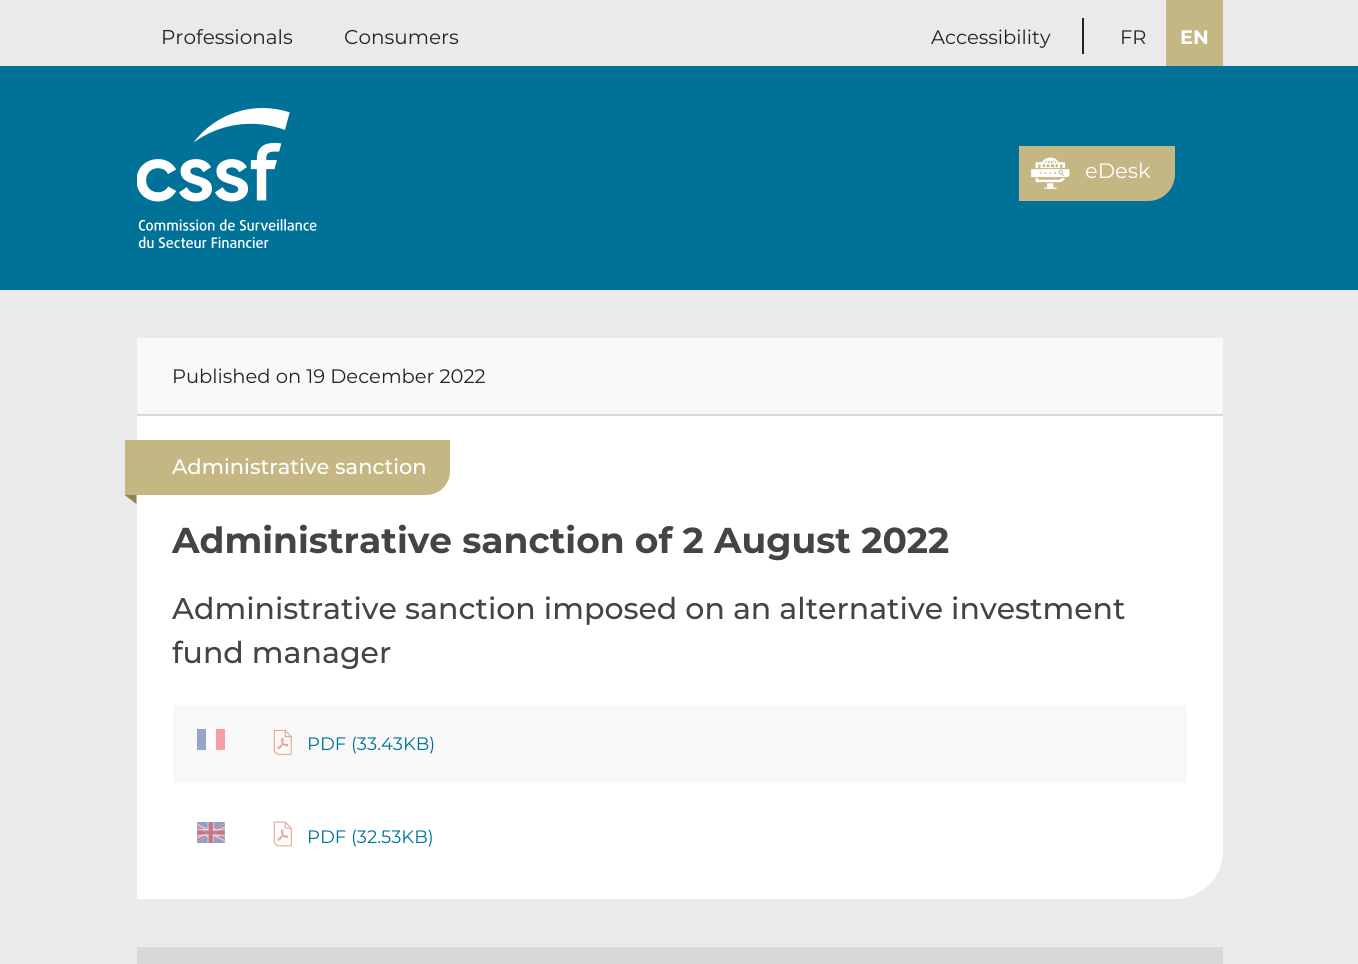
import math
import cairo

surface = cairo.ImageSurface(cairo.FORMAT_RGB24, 1358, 964)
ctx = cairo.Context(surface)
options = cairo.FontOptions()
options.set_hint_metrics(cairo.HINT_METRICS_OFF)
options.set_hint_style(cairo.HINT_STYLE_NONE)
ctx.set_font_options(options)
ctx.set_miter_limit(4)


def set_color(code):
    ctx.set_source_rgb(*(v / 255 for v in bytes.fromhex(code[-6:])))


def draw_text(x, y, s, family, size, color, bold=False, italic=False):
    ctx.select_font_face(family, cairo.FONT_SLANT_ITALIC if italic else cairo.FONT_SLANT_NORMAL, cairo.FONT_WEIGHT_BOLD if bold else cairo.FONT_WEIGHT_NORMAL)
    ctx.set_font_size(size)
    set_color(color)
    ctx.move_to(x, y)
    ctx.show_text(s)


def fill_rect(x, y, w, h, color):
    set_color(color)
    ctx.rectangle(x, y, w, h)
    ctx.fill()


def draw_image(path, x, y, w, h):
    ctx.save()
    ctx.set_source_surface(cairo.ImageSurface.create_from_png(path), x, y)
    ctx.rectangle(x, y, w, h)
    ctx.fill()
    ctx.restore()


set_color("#eaeaea")
ctx.paint()
draw_text(161, 44, "Professionals", "Montserrat", 20, "#212322")
draw_text(344, 44, "Consumers", "Montserrat", 20, "#212322")
draw_text(931, 44, "Accessibility", "Montserrat", 19.5, "#212322")
fill_rect(1082, 18, 2, 36, "#212322")
draw_text(1120, 44, "FR", "Montserrat", 19.5, "#212322")
fill_rect(1166, 0, 57, 66, "#c5b783")
draw_text(1180, 44, "EN", "Montserrat", 19.5, "#ffffff", bold=True)
fill_rect(0, 66, 1358, 224, "#007298")
draw_image("assets/img1.png", 137, 108, 180, 140)
set_color("#c5b783")
ctx.new_path()
ctx.move_to(1019, 146)
ctx.line_to(1175, 146)
ctx.line_to(1175, 174)
ctx.curve_to(1175, 189, 1163, 201, 1148, 201)
ctx.line_to(1019, 201)
ctx.close_path()
ctx.fill()
draw_image("assets/img2.png", 1031, 157, 39, 32)
draw_text(1085, 178, "eDesk", "Montserrat", 21, "#ffffff")
fill_rect(137, 338, 1086, 76, "#f8f8f8")
fill_rect(137, 414, 1086, 2, "#d8d8d8")
draw_text(172, 383, "Published on 19 December 2022", "Montserrat", 19.5, "#212322")
set_color("#ffffff")
ctx.new_path()
ctx.move_to(137, 416)
ctx.line_to(1223, 416)
ctx.line_to(1223, 851)
ctx.curve_to(1223, 877.5, 1201.5, 899, 1175, 899)
ctx.line_to(137, 899)
ctx.close_path()
ctx.fill()
set_color("#c5b783")
ctx.new_path()
ctx.move_to(125, 440)
ctx.line_to(450, 440)
ctx.line_to(450, 471)
ctx.curve_to(450, 484.5, 439.5, 495, 426, 495)
ctx.line_to(125, 495)
ctx.close_path()
ctx.fill()
draw_text(172, 474, "Administrative sanction", "Montserrat Medium", 21, "#ffffff")
set_color("#8f8256")
ctx.new_path()
ctx.move_to(136.5, 495)
ctx.line_to(136.5, 504)
ctx.line_to(124.5, 495)
ctx.close_path()
ctx.fill()
draw_text(172, 553, "Administrative sanction of 2 August 2022", "Montserrat", 36, "#444444", bold=True)
draw_text(172, 619, "Administrative sanction imposed on an alternative investment", "Montserrat Medium", 30, "#444444")
draw_text(172, 663, "fund manager", "Montserrat Medium", 30, "#444444")
fill_rect(173, 705, 1014, 78, "#f8f8f8")
fill_rect(197, 729, 9, 21, "#95a4c8")
fill_rect(206, 729, 10, 21, "#fbfbfb")
fill_rect(216, 729, 9, 21, "#f69ea8")
draw_image("assets/img3.png", 273, 730, 19, 25)
draw_text(307, 750, "PDF (33.43KB)", "Montserrat", 18, "#007298")
draw_image("assets/img4.png", 197, 822, 28, 21)
draw_image("assets/img5.png", 273, 821, 19, 26)
draw_text(307, 843, "PDF (32.53KB)", "Montserrat", 18, "#007298")
fill_rect(137, 947, 1086, 17, "#d8d8d8")
surface.write_to_png("output.png")
